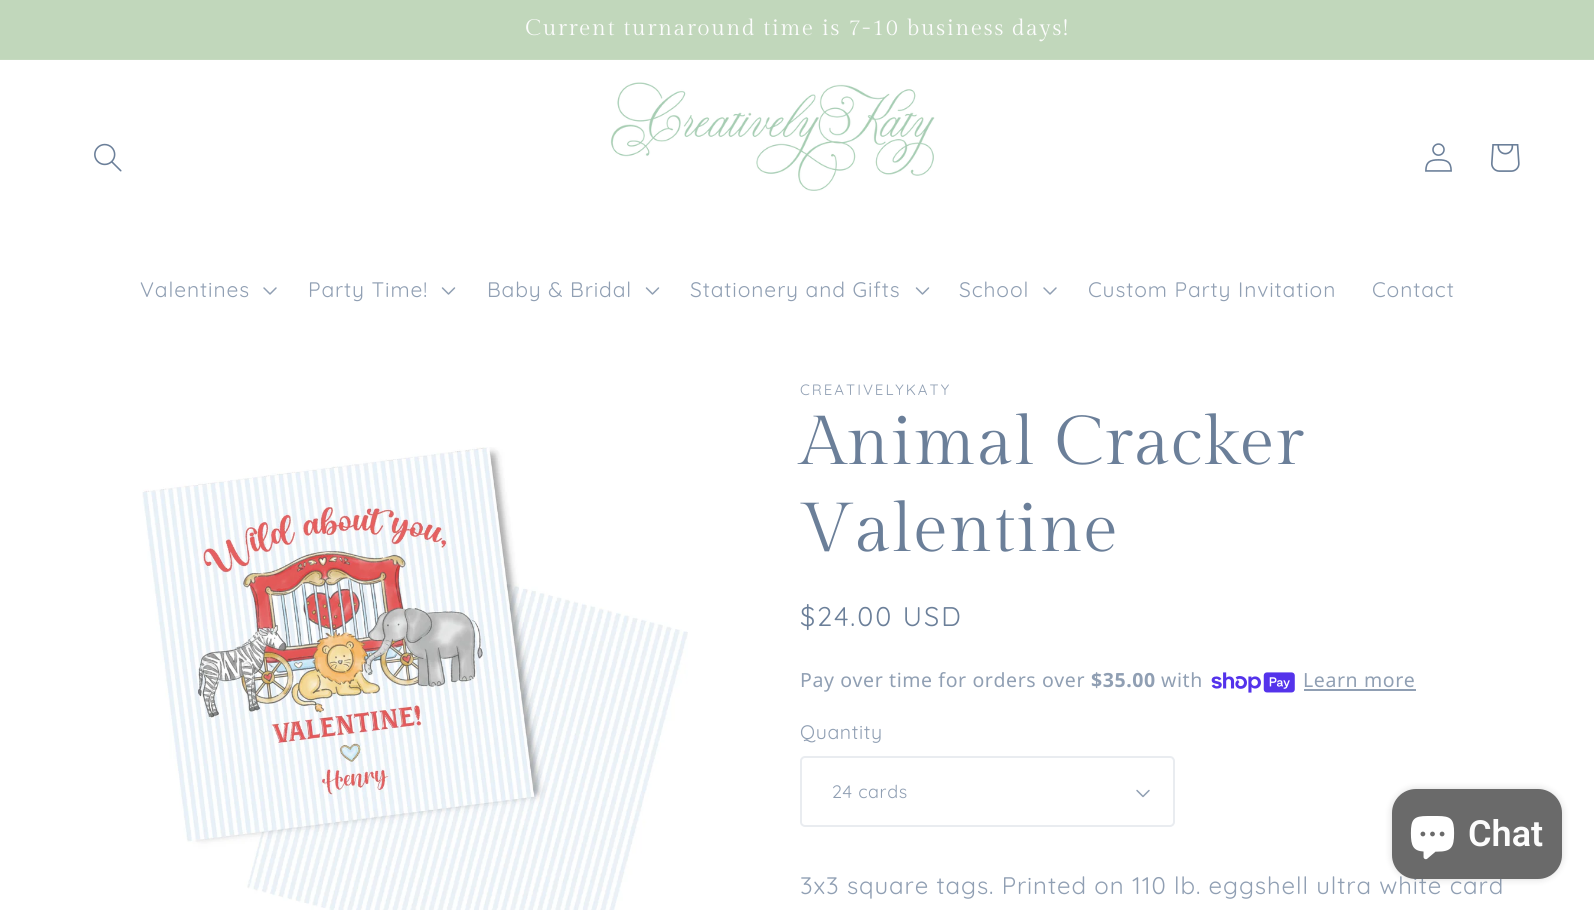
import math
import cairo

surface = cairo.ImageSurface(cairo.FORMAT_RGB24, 1594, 910)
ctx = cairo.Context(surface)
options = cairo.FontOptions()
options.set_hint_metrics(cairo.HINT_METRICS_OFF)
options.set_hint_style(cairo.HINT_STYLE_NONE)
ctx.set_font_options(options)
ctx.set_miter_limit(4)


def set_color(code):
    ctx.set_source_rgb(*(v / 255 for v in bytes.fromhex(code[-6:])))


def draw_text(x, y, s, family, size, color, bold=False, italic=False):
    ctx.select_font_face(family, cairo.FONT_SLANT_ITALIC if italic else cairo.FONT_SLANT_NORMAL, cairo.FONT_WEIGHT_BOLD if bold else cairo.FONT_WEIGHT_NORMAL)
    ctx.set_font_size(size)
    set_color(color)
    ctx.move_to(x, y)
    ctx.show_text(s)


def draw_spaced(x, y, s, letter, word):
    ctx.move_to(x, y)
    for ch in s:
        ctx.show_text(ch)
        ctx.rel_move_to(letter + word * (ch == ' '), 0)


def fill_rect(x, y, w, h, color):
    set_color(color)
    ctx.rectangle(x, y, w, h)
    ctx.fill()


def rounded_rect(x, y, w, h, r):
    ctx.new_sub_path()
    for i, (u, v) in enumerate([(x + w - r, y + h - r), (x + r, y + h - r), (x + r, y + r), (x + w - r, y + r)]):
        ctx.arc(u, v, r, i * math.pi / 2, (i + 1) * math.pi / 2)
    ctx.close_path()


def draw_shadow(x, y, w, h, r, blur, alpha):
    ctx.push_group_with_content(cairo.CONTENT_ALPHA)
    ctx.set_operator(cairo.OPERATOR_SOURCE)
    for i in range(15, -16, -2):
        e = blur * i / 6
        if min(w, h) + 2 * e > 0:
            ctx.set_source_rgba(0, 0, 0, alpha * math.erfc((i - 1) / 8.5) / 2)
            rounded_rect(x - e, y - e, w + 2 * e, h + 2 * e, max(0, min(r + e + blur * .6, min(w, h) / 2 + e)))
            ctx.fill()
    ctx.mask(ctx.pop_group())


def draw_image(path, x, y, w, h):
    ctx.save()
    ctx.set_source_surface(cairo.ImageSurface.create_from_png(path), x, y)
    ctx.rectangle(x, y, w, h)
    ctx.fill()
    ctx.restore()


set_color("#ffffff")
ctx.paint()
fill_rect(0, 0, 1594, 59, "#c1d7bb")
fill_rect(0, 59, 1594, 1, "#c6dac0")
ctx.select_font_face("Gilda Display")
ctx.set_font_size(22.4)
set_color("#fcfcfc")
draw_spaced(525, 35, "Current turnaround time is 7-10 business days!", 1.5, 0)
draw_image("assets/img1.png", 94, 143, 28, 29)
draw_image("assets/img2.png", 610, 82, 325, 109)
draw_image("assets/img3.png", 1425, 143, 27, 29)
draw_image("assets/img4.png", 1491, 144, 29, 28)
ctx.select_font_face("Quicksand")
ctx.set_font_size(21)
set_color("#909fb3")
draw_spaced(140, 297, "Valentines", 0.9, 0)
draw_image("assets/img5.png", 263, 287, 14, 8)
draw_spaced(308, 297, "Party Time!", 0.9, 0)
draw_image("assets/img6.png", 441, 287, 15, 8)
draw_spaced(487, 297, "Baby & Bridal", 0.9, 0)
draw_image("assets/img6.png", 645, 287, 15, 8)
draw_spaced(690, 297, "Stationery and Gifts", 0.9, 0)
draw_image("assets/img6.png", 915, 287, 15, 8)
draw_spaced(959, 297, "School", 0.9, 0)
draw_image("assets/img5.png", 1043, 287, 14, 8)
draw_spaced(1088, 297, "Custom Party Invitation", 0.9, 0)
draw_spaced(1372, 297, "Contact", 0.9, 0)
draw_image("assets/img7.png", 142, 447, 546, 463)
ctx.set_font_size(15)
draw_spaced(800, 395, "CREATIVELYKATY", 2, 0)
ctx.select_font_face("Gilda Display")
ctx.set_font_size(69)
set_color("#6b7f99")
draw_spaced(800, 464, "Animal Cracker", 1, 0)
draw_spaced(800, 551, "Valentine", 1, 0)
ctx.select_font_face("Quicksand")
ctx.set_font_size(27)
draw_spaced(800, 626, "$24.00 USD", 2, 0)
ctx.select_font_face("Noto Sans")
ctx.set_font_size(19.5)
set_color("#909fb3")
draw_spaced(800, 687, "Pay over time for orders over", 0.6, 0)
ctx.select_font_face("Noto Sans", cairo.FONT_SLANT_NORMAL, cairo.FONT_WEIGHT_BOLD)
draw_spaced(1091, 687, "$35.00", 0.6, 0)
ctx.select_font_face("Noto Sans")
draw_spaced(1161, 687, "with", 0.6, 0)
draw_image("assets/img8.png", 1211, 672, 84, 21)
draw_spaced(1303, 687, "Learn more", 0.6, 0)
fill_rect(1304, 689, 112, 2, "#909fb3")
ctx.select_font_face("Quicksand")
draw_spaced(800, 739, "Quantity", 0.6, 0)
draw_image("assets/img9.png", 1136, 789, 14, 9)
rounded_rect(801, 757, 373, 69, 4)
ctx.set_source_rgba(0.42, 0.498, 0.6, 0.15)
ctx.stroke()
ctx.set_font_size(18)
set_color("#909fb3")
draw_spaced(832, 798, "24 cards", 0.6, 0)
ctx.set_font_size(24)
draw_spaced(800, 894, "3x3 square tags. Printed on 110 lb. eggshell ultra white card", 0.9, 0)
set_color("#000000")
draw_shadow(1392, 789, 170, 90, 24, 4, 0.15)
set_color("#6a6a6a")
rounded_rect(1392, 789, 170, 90, 24)
ctx.fill()
draw_image("assets/img10.png", 1410, 816, 45, 44)
draw_text(1468, 846, "Chat", "Roboto SemiBold", 36, "#fcfcfc")
surface.write_to_png("output.png")
